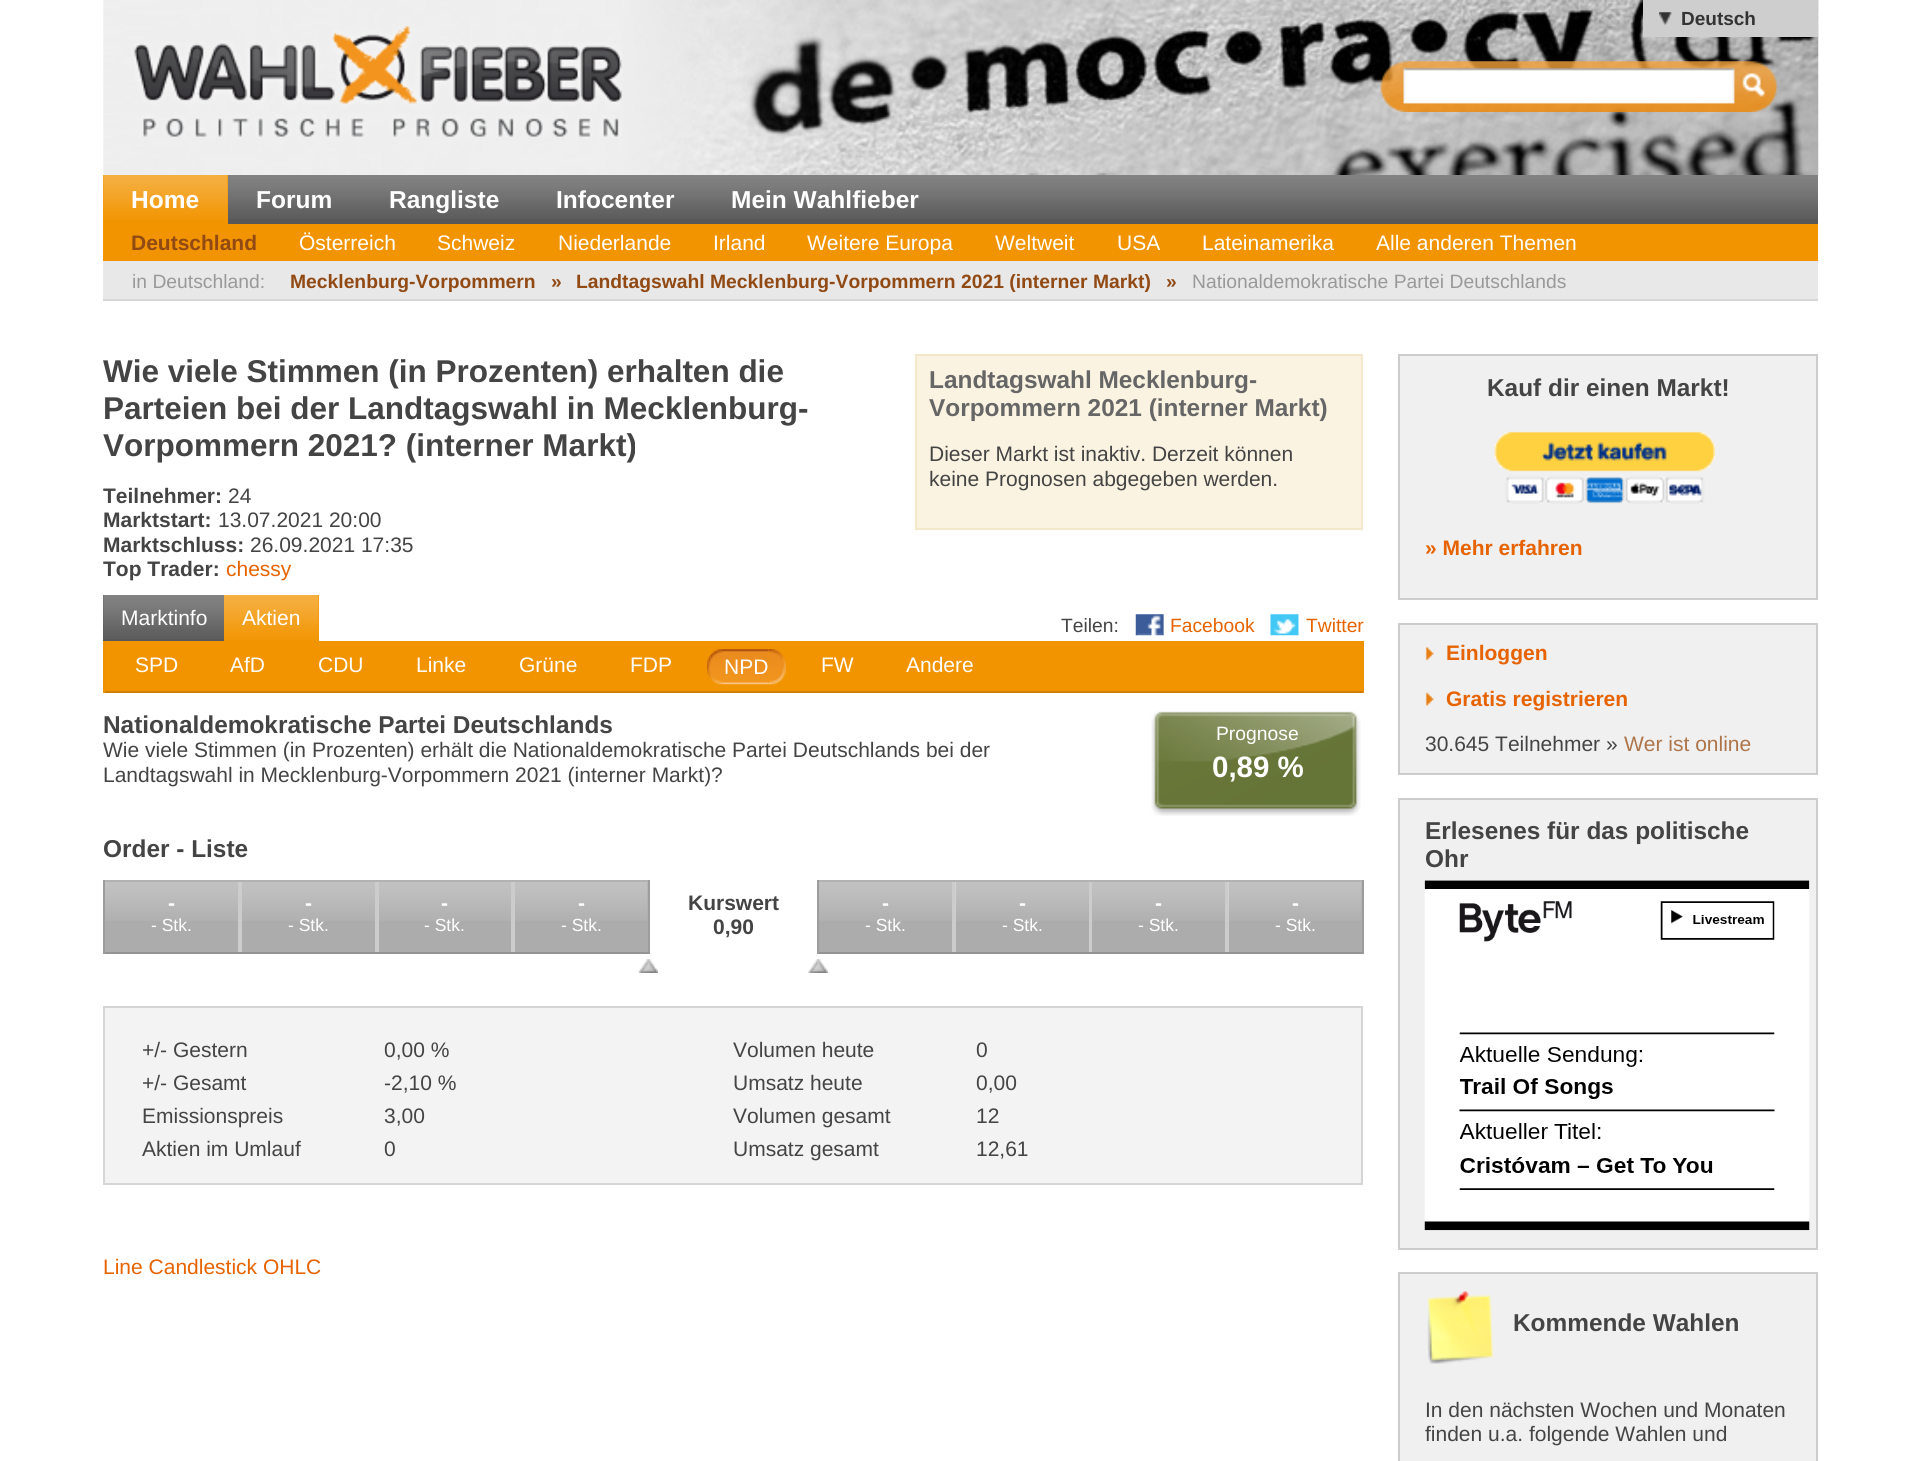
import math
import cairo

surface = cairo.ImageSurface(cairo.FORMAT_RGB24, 1920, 1461)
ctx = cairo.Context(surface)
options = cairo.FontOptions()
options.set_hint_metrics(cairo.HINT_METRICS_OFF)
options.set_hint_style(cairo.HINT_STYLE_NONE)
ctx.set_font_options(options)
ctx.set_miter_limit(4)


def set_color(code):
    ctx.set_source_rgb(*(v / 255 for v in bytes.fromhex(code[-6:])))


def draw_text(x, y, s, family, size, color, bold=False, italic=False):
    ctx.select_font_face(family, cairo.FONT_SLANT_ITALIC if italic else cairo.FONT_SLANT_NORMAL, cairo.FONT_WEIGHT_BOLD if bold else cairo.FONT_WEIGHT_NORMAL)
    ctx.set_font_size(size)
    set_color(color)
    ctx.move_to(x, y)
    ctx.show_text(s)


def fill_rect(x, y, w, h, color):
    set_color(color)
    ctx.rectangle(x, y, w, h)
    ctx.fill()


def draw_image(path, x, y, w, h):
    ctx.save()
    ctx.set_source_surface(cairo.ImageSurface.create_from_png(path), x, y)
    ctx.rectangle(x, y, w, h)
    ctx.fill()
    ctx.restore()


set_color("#ffffff")
ctx.paint()
draw_image("assets/img1.png", 103, 0, 1716, 175)
fill_rect(1643, 0, 175, 37, "#cecece")
draw_image("assets/img2.png", 1659, 12, 13, 13)
draw_text(1681, 25, "Deutsch", "Liberation Sans", 19, "#333333", bold=True)
draw_image("assets/img3.png", 134, 26, 488, 111)
draw_image("assets/img4.png", 1380, 61, 398, 51)
fill_rect(228, 175, 1590, 49, "#585858")
draw_image("assets/img5.png", 228, 175, 1590, 44)
fill_rect(103, 175, 125, 49, "#f29400")
draw_image("assets/img6.png", 103, 175, 125, 45)
draw_text(131, 208, "Home", "Liberation Sans", 24.5, "#ffffff", bold=True)
draw_text(256, 208, "Forum", "Liberation Sans", 24.5, "#ffffff", bold=True)
draw_text(389, 208, "Rangliste", "Liberation Sans", 24.5, "#ffffff", bold=True)
draw_text(556, 208, "Infocenter", "Liberation Sans", 24.5, "#ffffff", bold=True)
draw_text(731, 208, "Mein Wahlfieber", "Liberation Sans", 24.5, "#ffffff", bold=True)
fill_rect(103, 224, 1715, 37, "#f29400")
draw_text(131, 250, "Deutschland", "Liberation Sans", 21, "#914a14", bold=True)
draw_text(299, 250, "Österreich", "Liberation Sans", 21, "#ffffff")
draw_text(437, 250, "Schweiz", "Liberation Sans", 21, "#ffffff")
draw_text(558, 250, "Niederlande", "Liberation Sans", 21, "#ffffff")
draw_text(713, 250, "Irland", "Liberation Sans", 21, "#ffffff")
draw_text(807, 250, "Weitere Europa", "Liberation Sans", 21, "#ffffff")
draw_text(995, 250, "Weltweit", "Liberation Sans", 21, "#ffffff")
draw_text(1117, 250, "USA", "Liberation Sans", 21, "#ffffff")
draw_text(1202, 250, "Lateinamerika", "Liberation Sans", 21, "#ffffff")
draw_text(1376, 250, "Alle anderen Themen", "Liberation Sans", 21, "#ffffff")
fill_rect(103, 261, 1715, 38, "#e8e8e8")
fill_rect(103, 299, 1715, 2, "#d6d6d6")
draw_text(132, 288, "in Deutschland:", "Liberation Sans", 19.3, "#999999")
draw_text(290, 288, "Mecklenburg-Vorpommern", "Liberation Sans", 19.3, "#914a14", bold=True)
draw_text(551, 288, "»", "Liberation Sans", 19.3, "#914a14", bold=True)
draw_text(576, 288, "Landtagswahl Mecklenburg-Vorpommern 2021 (interner Markt)", "Liberation Sans", 19.3, "#914a14", bold=True)
draw_text(1166, 288, "»", "Liberation Sans", 19.3, "#914a14", bold=True)
draw_text(1192, 288, "Nationaldemokratische Partei Deutschlands", "Liberation Sans", 19.3, "#999999")
draw_text(103, 382, "Wie viele Stimmen (in Prozenten) erhalten die", "Liberation Sans", 31.5, "#444444", bold=True)
draw_text(103, 419, "Parteien bei der Landtagswahl in Mecklenburg-", "Liberation Sans", 31.5, "#444444", bold=True)
draw_text(103, 456, "Vorpommern 2021? (interner Markt)", "Liberation Sans", 31.5, "#444444", bold=True)
draw_text(103, 503, "Teilnehmer:", "Liberation Sans", 21, "#444444", bold=True)
draw_text(228, 503, "24", "Liberation Sans", 21, "#444444")
draw_text(103, 527, "Marktstart:", "Liberation Sans", 21, "#444444", bold=True)
draw_text(218, 527, "13.07.2021 20:00", "Liberation Sans", 21, "#444444")
draw_text(103, 552, "Marktschluss:", "Liberation Sans", 21, "#444444", bold=True)
draw_text(250, 552, "26.09.2021 17:35", "Liberation Sans", 21, "#444444")
draw_text(103, 576, "Top Trader:", "Liberation Sans", 21, "#444444", bold=True)
draw_text(226, 576, "chessy", "Liberation Sans", 21, "#e66300")
set_color("#faf3e1")
ctx.rectangle(916, 355, 446, 174)
ctx.fill_preserve()
set_color("#f3e8ca")
ctx.stroke()
draw_text(929, 388, "Landtagswahl Mecklenburg-", "Liberation Sans", 24.4, "#666666", bold=True)
draw_text(929, 416, "Vorpommern 2021 (interner Markt)", "Liberation Sans", 24.4, "#666666", bold=True)
draw_text(929, 461, "Dieser Markt ist inaktiv. Derzeit können", "Liberation Sans", 21, "#444444")
draw_text(929, 486, "keine Prognosen abgegeben werden.", "Liberation Sans", 21, "#444444")
fill_rect(103, 595, 121, 46, "#585858")
draw_image("assets/img7.png", 103, 595, 121, 44)
draw_text(121, 625, "Marktinfo", "Liberation Sans", 21, "#ffffff")
fill_rect(224, 595, 95, 46, "#f29400")
draw_image("assets/img8.png", 224, 595, 95, 45)
draw_text(242, 625, "Aktien", "Liberation Sans", 21, "#ffffff")
draw_text(1061, 632, "Teilen:", "Liberation Sans", 19.25, "#444444")
draw_image("assets/img9.png", 1135, 614, 29, 22)
draw_text(1170, 632, "Facebook", "Liberation Sans", 19.25, "#e66300")
draw_image("assets/img10.png", 1270, 614, 29, 22)
draw_text(1306, 632, "Twitter", "Liberation Sans", 19.25, "#e66300")
fill_rect(105, 641, 1257, 50, "#f29400")
fill_rect(1362, 641, 2, 52, "#ec9204")
fill_rect(103, 691, 1260, 2, "#cd8005")
fill_rect(103, 641, 2, 52, "#ec9204")
draw_text(135, 672, "SPD", "Liberation Sans", 21, "#ffffff")
draw_text(230, 672, "AfD", "Liberation Sans", 21, "#ffffff")
draw_text(318, 672, "CDU", "Liberation Sans", 21, "#ffffff")
draw_text(416, 672, "Linke", "Liberation Sans", 21, "#ffffff")
draw_text(519, 672, "Grüne", "Liberation Sans", 21, "#ffffff")
draw_text(630, 672, "FDP", "Liberation Sans", 21, "#ffffff")
draw_image("assets/img11.png", 768, 649, 18, 36)
draw_image("assets/img12.png", 707, 649, 62, 36)
draw_text(724, 674, "NPD", "Liberation Sans", 21, "#ffffff")
draw_text(821, 672, "FW", "Liberation Sans", 21, "#ffffff")
draw_text(906, 672, "Andere", "Liberation Sans", 21, "#ffffff")
draw_text(103, 733, "Nationaldemokratische Partei Deutschlands", "Liberation Sans", 24.4, "#444444", bold=True)
draw_text(103, 757, "Wie viele Stimmen (in Prozenten) erhält die Nationaldemokratische Partei Deutschlands bei der", "Liberation Sans", 21, "#444444")
draw_text(103, 782, "Landtagswahl in Mecklenburg-Vorpommern 2021 (interner Markt)?", "Liberation Sans", 21, "#444444")
draw_image("assets/img13.png", 1151, 711, 210, 105)
draw_text(1216, 740, "Prognose", "Liberation Sans", 19.3, "#ffffff")
draw_text(1212, 777, "0,89 %", "Liberation Sans", 29.5, "#ffffff", bold=True)
draw_text(103, 857, "Order - Liste", "Liberation Sans", 24.4, "#444444", bold=True)
fill_rect(103, 880, 546, 2, "#b2b2b2")
fill_rect(648, 880, 2, 74, "#9c9c9c")
fill_rect(103, 952, 546, 2, "#949494")
fill_rect(103, 880, 2, 74, "#9c9c9c")
fill_rect(105, 882, 133, 70, "#acacac")
draw_image("assets/img14.png", 105, 882, 133, 39)
fill_rect(238, 882, 4, 70, "#cccccc")
draw_text(168, 910, "-", "Liberation Sans", 21, "#ffffff", bold=True)
draw_text(151, 931, "- Stk.", "Liberation Sans", 17.5, "#ffffff")
fill_rect(242, 882, 133, 70, "#acacac")
draw_image("assets/img14.png", 242, 882, 133, 39)
fill_rect(375, 882, 4, 70, "#cccccc")
draw_text(305, 910, "-", "Liberation Sans", 21, "#ffffff", bold=True)
draw_text(288, 931, "- Stk.", "Liberation Sans", 17.5, "#ffffff")
fill_rect(379, 882, 132, 70, "#acacac")
draw_image("assets/img15.png", 379, 882, 132, 39)
fill_rect(511, 882, 4, 70, "#cccccc")
draw_text(441, 910, "-", "Liberation Sans", 21, "#ffffff", bold=True)
draw_text(424, 931, "- Stk.", "Liberation Sans", 17.5, "#ffffff")
fill_rect(515, 882, 133, 70, "#acacac")
draw_image("assets/img16.png", 515, 882, 133, 39)
draw_text(578, 910, "-", "Liberation Sans", 21, "#ffffff", bold=True)
draw_text(561, 931, "- Stk.", "Liberation Sans", 17.5, "#ffffff")
draw_text(688, 910, "Kurswert", "Liberation Sans", 21, "#444444", bold=True)
draw_text(713, 934, "0,90", "Liberation Sans", 21, "#444444", bold=True)
draw_image("assets/img17.png", 638, 959, 20, 14)
draw_image("assets/img18.png", 808, 959, 20, 14)
fill_rect(817, 880, 546, 2, "#b2b2b2")
fill_rect(1362, 880, 2, 74, "#9c9c9c")
fill_rect(817, 952, 546, 2, "#949494")
fill_rect(817, 880, 2, 74, "#9c9c9c")
fill_rect(819, 882, 133, 70, "#acacac")
draw_image("assets/img14.png", 819, 882, 133, 39)
fill_rect(952, 882, 4, 70, "#cccccc")
draw_text(882, 910, "-", "Liberation Sans", 21, "#ffffff", bold=True)
draw_text(865, 931, "- Stk.", "Liberation Sans", 17.5, "#ffffff")
fill_rect(956, 882, 133, 70, "#acacac")
draw_image("assets/img19.png", 955, 882, 134, 39)
fill_rect(1089, 882, 3, 70, "#cccccc")
draw_text(1019, 910, "-", "Liberation Sans", 21, "#ffffff", bold=True)
draw_text(1002, 931, "- Stk.", "Liberation Sans", 17.5, "#ffffff")
fill_rect(1092, 882, 133, 70, "#acacac")
draw_image("assets/img14.png", 1092, 882, 133, 39)
fill_rect(1225, 882, 4, 70, "#cccccc")
draw_text(1155, 910, "-", "Liberation Sans", 21, "#ffffff", bold=True)
draw_text(1138, 931, "- Stk.", "Liberation Sans", 17.5, "#ffffff")
fill_rect(1229, 882, 133, 70, "#acacac")
draw_image("assets/img20.png", 1228, 882, 134, 39)
draw_text(1292, 910, "-", "Liberation Sans", 21, "#ffffff", bold=True)
draw_text(1275, 931, "- Stk.", "Liberation Sans", 17.5, "#ffffff")
set_color("#f3f3f3")
ctx.rectangle(104, 1007, 1258, 177)
ctx.fill_preserve()
set_color("#d5d5d5")
ctx.stroke()
draw_text(142, 1057, "+/- Gestern", "Liberation Sans", 21, "#444444")
draw_text(384, 1057, "0,00 %", "Liberation Sans", 21, "#444444")
draw_text(142, 1090, "+/- Gesamt", "Liberation Sans", 21, "#444444")
draw_text(384, 1090, "-2,10 %", "Liberation Sans", 21, "#444444")
draw_text(142, 1123, "Emissionspreis", "Liberation Sans", 21, "#444444")
draw_text(384, 1123, "3,00", "Liberation Sans", 21, "#444444")
draw_text(142, 1156, "Aktien im Umlauf", "Liberation Sans", 21, "#444444")
draw_text(384, 1156, "0", "Liberation Sans", 21, "#444444")
draw_text(733, 1057, "Volumen heute", "Liberation Sans", 21, "#444444")
draw_text(976, 1057, "0", "Liberation Sans", 21, "#444444")
draw_text(733, 1090, "Umsatz heute", "Liberation Sans", 21, "#444444")
draw_text(976, 1090, "0,00", "Liberation Sans", 21, "#444444")
draw_text(733, 1123, "Volumen gesamt", "Liberation Sans", 21, "#444444")
draw_text(976, 1123, "12", "Liberation Sans", 21, "#444444")
draw_text(733, 1156, "Umsatz gesamt", "Liberation Sans", 21, "#444444")
draw_text(976, 1156, "12,61", "Liberation Sans", 21, "#444444")
draw_text(103, 1274, "Line Candlestick OHLC", "Liberation Sans", 21, "#e66300")
set_color("#f0f0f0")
ctx.rectangle(1399, 355, 418, 244)
ctx.fill_preserve()
set_color("#cccccc")
ctx.stroke()
draw_text(1487, 396, "Kauf dir einen Markt!", "Liberation Sans", 24.4, "#444444", bold=True)
draw_image("assets/img21.png", 1494, 431, 221, 73)
draw_text(1425, 555, "» Mehr erfahren", "Liberation Sans", 21, "#e66300", bold=True)
set_color("#f0f0f0")
ctx.rectangle(1399, 624, 418, 150)
ctx.fill_preserve()
set_color("#cccccc")
ctx.stroke()
draw_image("assets/img22.png", 1425, 647, 9, 14)
draw_text(1446, 660, "Einloggen", "Liberation Sans", 21, "#e66300", bold=True)
draw_image("assets/img23.png", 1425, 692, 9, 14)
draw_text(1446, 706, "Gratis registrieren", "Liberation Sans", 21, "#e66300", bold=True)
draw_text(1425, 751, "30.645 Teilnehmer »", "Liberation Sans", 21, "#444444")
draw_text(1624, 751, "Wer ist online", "Liberation Sans", 21, "#ae754a")
set_color("#f0f0f0")
ctx.rectangle(1399, 799, 418, 450)
ctx.fill_preserve()
set_color("#cccccc")
ctx.stroke()
draw_text(1425, 839, "Erlesenes für das politische", "Liberation Sans", 24.4, "#444444", bold=True)
draw_text(1425, 867, "Ohr", "Liberation Sans", 24.4, "#444444", bold=True)
draw_image("assets/img24.png", 1424, 880, 386, 351)
set_color("#f0f0f0")
ctx.rectangle(1399, 1273, 418, 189)
ctx.fill_preserve()
set_color("#cccccc")
ctx.stroke()
draw_image("assets/img25.png", 1427, 1291, 67, 73)
draw_text(1513, 1331, "Kommende Wahlen", "Liberation Sans", 24.4, "#444444", bold=True)
draw_text(1425, 1417, "In den nächsten Wochen und Monaten", "Liberation Sans", 21, "#444444")
draw_text(1425, 1441, "finden u.a. folgende Wahlen und", "Liberation Sans", 21, "#444444")
surface.write_to_png("output.png")
